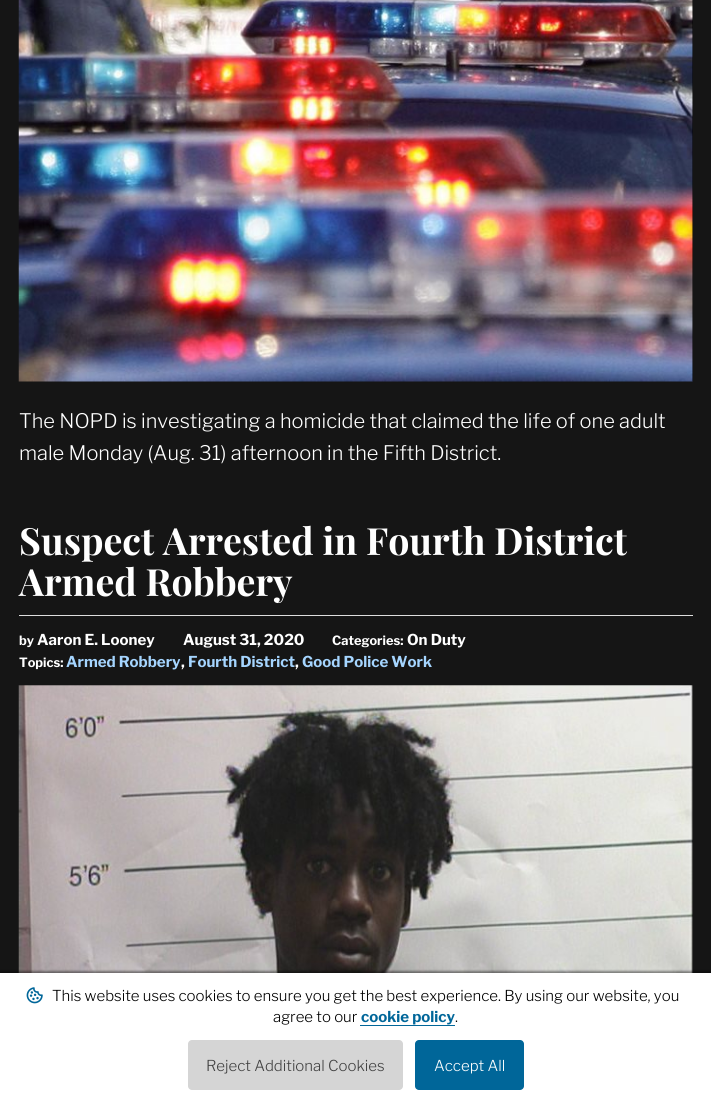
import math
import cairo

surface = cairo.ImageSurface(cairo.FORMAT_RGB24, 711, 1102)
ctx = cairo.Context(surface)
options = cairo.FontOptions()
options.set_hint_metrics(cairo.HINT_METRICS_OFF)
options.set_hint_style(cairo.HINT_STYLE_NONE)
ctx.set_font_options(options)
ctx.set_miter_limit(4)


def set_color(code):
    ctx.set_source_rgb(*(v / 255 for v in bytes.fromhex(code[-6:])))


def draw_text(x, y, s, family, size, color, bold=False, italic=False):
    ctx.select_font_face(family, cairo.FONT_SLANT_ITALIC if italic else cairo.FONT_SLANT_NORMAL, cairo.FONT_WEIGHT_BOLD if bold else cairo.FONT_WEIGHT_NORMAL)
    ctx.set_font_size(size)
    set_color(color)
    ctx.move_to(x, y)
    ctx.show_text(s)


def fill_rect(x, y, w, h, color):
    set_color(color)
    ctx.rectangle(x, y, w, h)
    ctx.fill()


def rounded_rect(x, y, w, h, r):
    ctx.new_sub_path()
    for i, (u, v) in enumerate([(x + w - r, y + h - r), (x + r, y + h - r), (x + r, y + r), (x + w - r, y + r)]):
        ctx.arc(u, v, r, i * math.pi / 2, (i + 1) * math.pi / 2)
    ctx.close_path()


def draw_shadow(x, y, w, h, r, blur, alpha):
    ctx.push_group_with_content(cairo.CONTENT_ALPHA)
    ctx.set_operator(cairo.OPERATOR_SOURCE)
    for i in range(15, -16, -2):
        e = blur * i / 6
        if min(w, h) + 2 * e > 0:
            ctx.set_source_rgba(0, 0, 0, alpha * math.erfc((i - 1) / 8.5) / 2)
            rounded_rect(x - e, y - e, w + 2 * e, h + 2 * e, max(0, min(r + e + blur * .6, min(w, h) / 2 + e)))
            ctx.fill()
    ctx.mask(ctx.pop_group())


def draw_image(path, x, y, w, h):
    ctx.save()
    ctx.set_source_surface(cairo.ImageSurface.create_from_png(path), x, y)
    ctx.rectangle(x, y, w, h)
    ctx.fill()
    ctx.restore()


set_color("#151515")
ctx.paint()
fill_rect(692, 0, 1, 381, "#000000")
draw_image("assets/img1.png", 18, 0, 675, 382)
draw_text(19, 428, "The NOPD is investigating a homicide that claimed the life of one adult", "Libre Franklin Light", 20, "#ffffff")
draw_text(19, 460, "male Monday (Aug. 31) afternoon in the Fifth District.", "Libre Franklin Light", 20, "#ffffff")
draw_text(19, 555, "Suspect Arrested in Fourth District", "Playfair Display", 37.5, "#ffffff", bold=True)
draw_text(19, 596, "Armed Robbery", "Playfair Display", 37.5, "#ffffff", bold=True)
fill_rect(19, 615, 674, 1, "#dddddd")
draw_text(19, 645, "by", "Libre Franklin", 12.75, "#ffffff", bold=True)
draw_text(37, 645, "Aaron E. Looney", "Libre Franklin", 15, "#ffffff", bold=True)
draw_text(183, 645, "August 31, 2020", "Libre Franklin", 15, "#ffffff", bold=True)
draw_text(332, 645, "Categories:", "Libre Franklin", 12.75, "#ffffff", bold=True)
draw_text(407, 645, "On Duty", "Libre Franklin", 15, "#ffffff", bold=True)
draw_text(19, 667, "Topics:", "Libre Franklin", 12.75, "#ffffff", bold=True)
draw_text(66, 667, "Armed Robbery", "Libre Franklin", 15, "#a5d5ff", bold=True)
draw_text(181, 667, ",", "Libre Franklin", 15, "#ffffff", bold=True)
draw_text(188, 667, "Fourth District", "Libre Franklin", 15, "#a5d5ff", bold=True)
draw_text(295, 667, ",", "Libre Franklin", 15, "#ffffff", bold=True)
draw_text(302, 667, "Good Police Work", "Libre Franklin", 15, "#a5d5ff", bold=True)
fill_rect(19, 685, 674, 288, "#000000")
draw_image("assets/img2.png", 18, 685, 675, 288)
set_color("#000000")
draw_shadow(-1, 971, 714, 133, 0, 1, 0.4)
fill_rect(0, 973, 711, 129, "#ffffff")
draw_image("assets/img3.png", 26, 987, 17, 17)
draw_text(52, 1001, "This website uses cookies to ensure you get the best experience. By using our website, you", "Libre Franklin Light", 15, "#000000")
draw_text(273, 1022, "agree to our", "Libre Franklin Light", 15, "#000000")
draw_text(361, 1022, "cookie policy", "Libre Franklin", 15, "#006699", bold=True)
fill_rect(360, 1025, 95, 1, "#006699")
draw_text(455, 1022, ".", "Libre Franklin Light", 15, "#000000")
set_color("#d5d5d5")
rounded_rect(188, 1040, 215, 50, 4)
ctx.fill()
draw_text(206, 1071, "Reject Additional Cookies", "Libre Franklin Light", 15, "#414141")
set_color("#006699")
rounded_rect(415, 1040, 109, 50, 4)
ctx.fill()
draw_text(434, 1071, "Accept All", "Libre Franklin Light", 15, "#ffffff")
surface.write_to_png("output.png")
